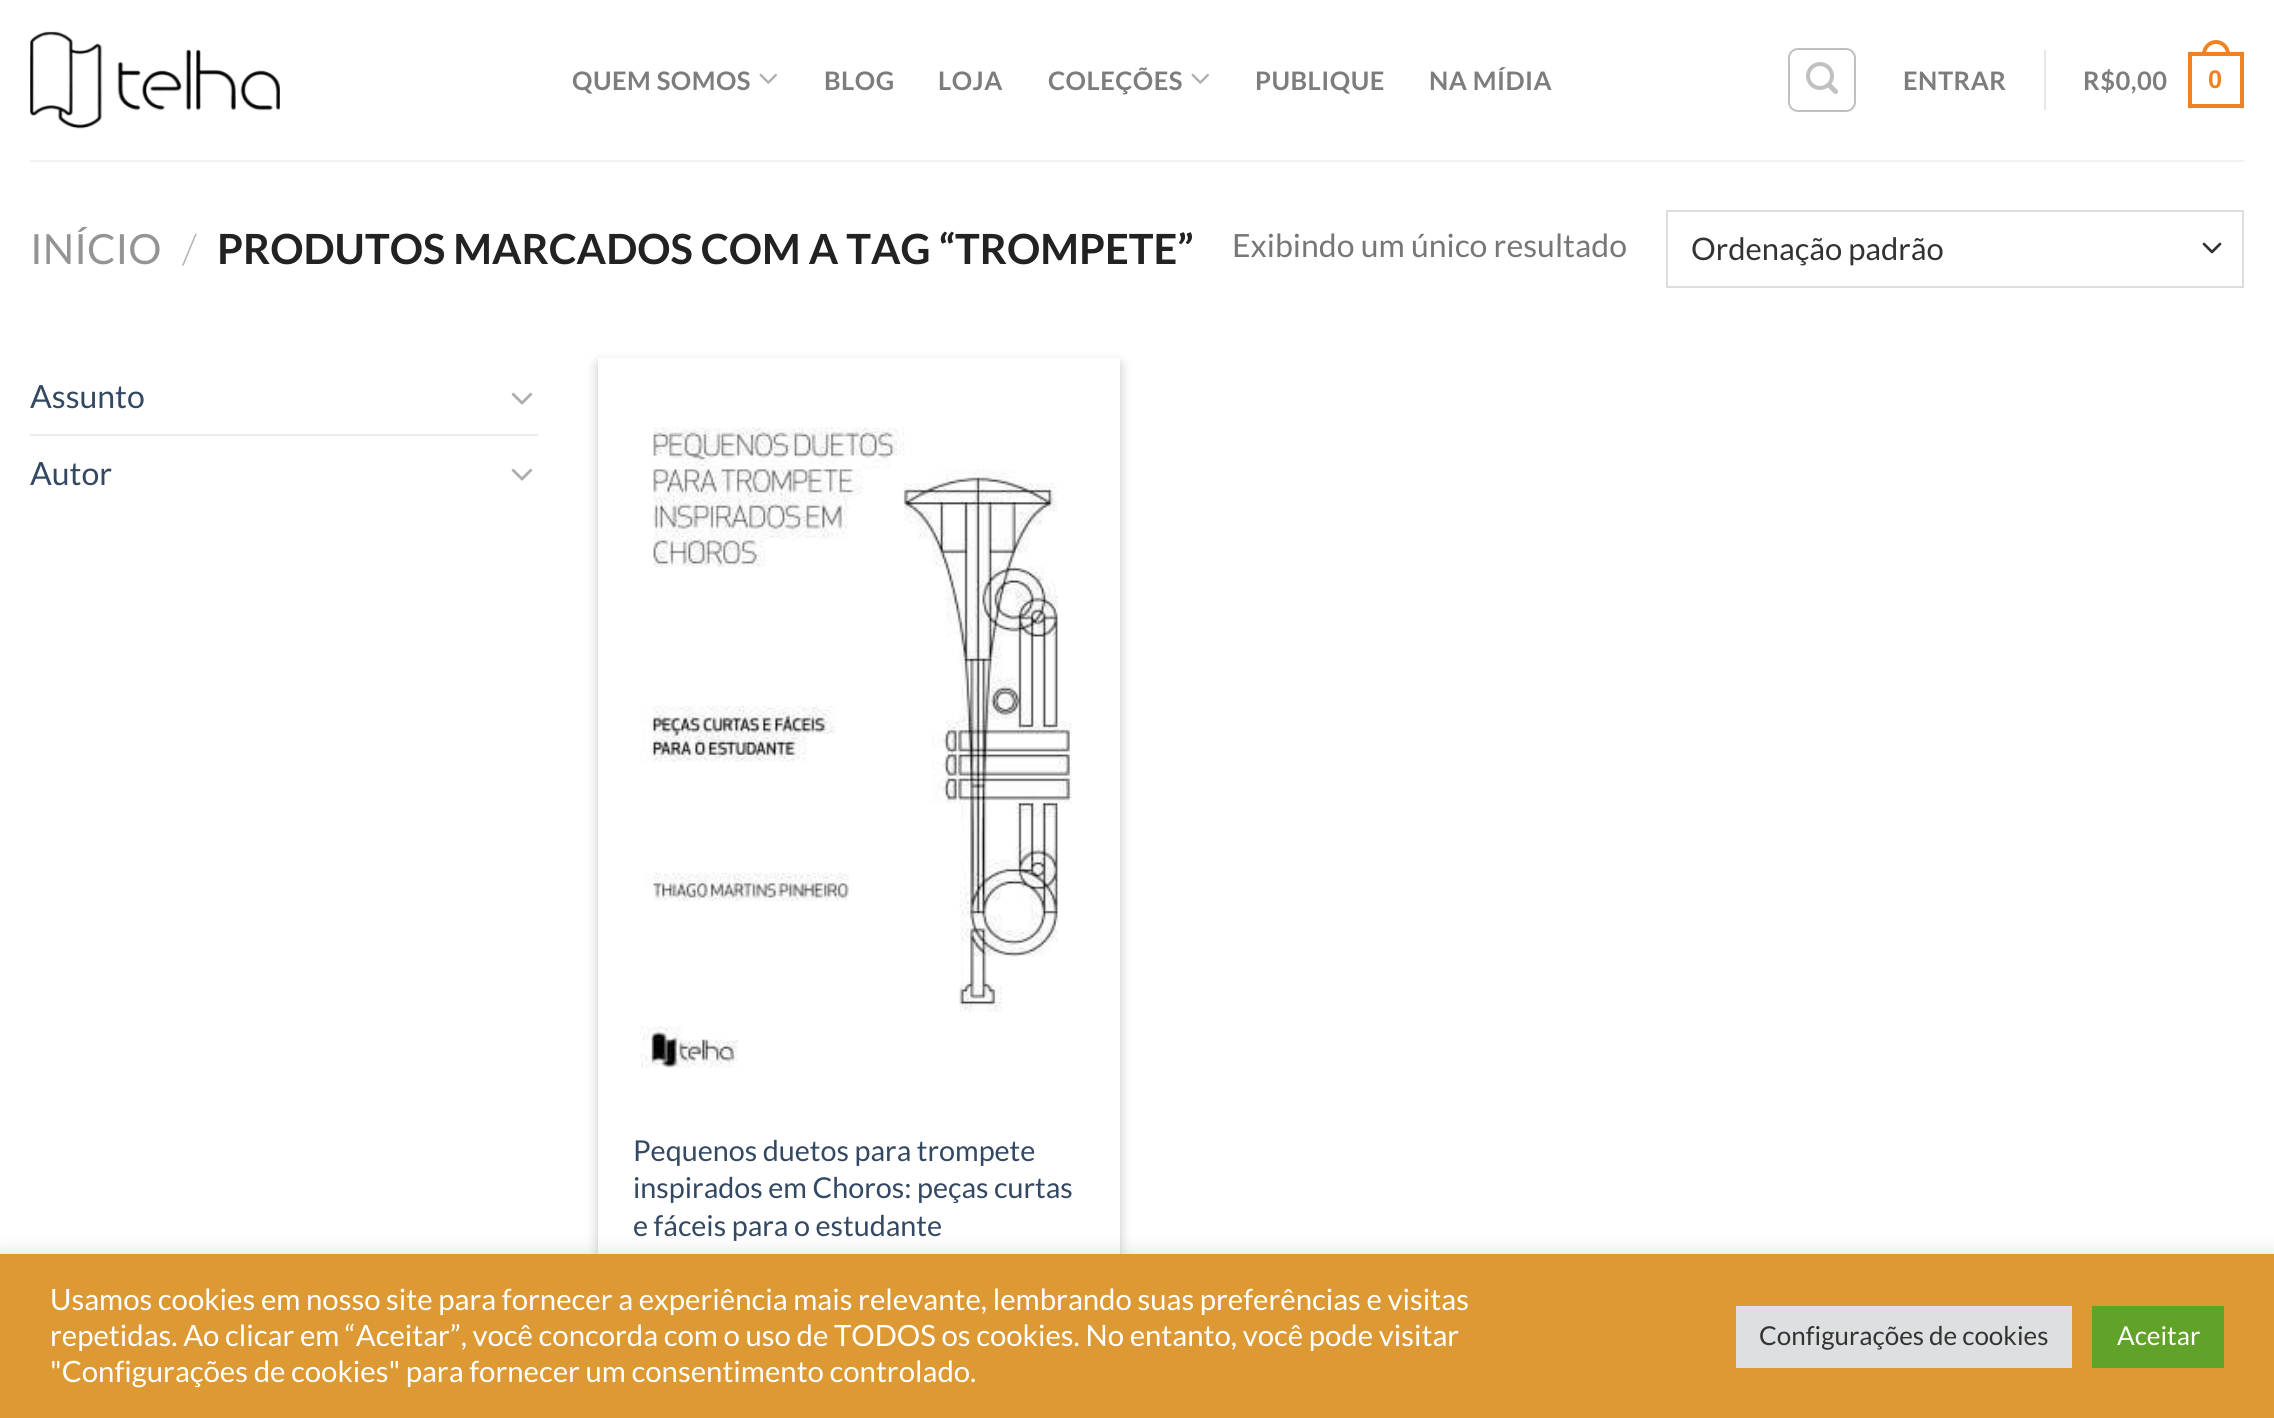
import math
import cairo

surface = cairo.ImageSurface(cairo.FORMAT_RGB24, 2274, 1418)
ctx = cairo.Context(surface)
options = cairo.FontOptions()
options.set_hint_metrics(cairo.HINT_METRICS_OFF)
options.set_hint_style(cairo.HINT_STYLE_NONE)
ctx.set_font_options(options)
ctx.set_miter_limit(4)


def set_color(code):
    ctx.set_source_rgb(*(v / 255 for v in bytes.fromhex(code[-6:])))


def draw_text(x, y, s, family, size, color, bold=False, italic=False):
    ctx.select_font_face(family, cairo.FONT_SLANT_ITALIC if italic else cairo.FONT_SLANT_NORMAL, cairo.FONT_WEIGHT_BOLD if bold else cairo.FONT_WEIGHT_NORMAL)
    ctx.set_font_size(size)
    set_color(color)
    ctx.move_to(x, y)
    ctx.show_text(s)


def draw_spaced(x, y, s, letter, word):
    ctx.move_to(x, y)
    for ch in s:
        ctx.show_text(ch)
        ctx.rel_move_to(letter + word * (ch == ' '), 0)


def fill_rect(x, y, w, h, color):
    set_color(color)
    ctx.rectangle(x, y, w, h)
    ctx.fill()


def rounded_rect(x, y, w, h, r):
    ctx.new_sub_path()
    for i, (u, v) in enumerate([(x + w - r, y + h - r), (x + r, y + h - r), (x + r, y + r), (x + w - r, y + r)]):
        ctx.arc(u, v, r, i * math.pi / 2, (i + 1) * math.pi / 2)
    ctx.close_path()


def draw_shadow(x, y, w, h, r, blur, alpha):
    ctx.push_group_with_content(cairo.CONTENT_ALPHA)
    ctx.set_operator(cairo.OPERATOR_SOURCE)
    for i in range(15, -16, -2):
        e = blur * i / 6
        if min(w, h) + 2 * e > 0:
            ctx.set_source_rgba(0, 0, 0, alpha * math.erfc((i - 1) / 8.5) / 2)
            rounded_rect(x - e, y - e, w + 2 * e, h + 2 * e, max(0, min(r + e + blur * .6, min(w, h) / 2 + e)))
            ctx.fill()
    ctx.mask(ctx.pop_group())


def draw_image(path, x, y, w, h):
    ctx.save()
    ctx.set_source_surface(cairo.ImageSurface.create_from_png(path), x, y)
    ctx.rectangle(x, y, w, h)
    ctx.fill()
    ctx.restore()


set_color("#ffffff")
ctx.paint()
draw_image("assets/img1.png", 30, 31, 250, 98)
ctx.select_font_face("Lato", cairo.FONT_SLANT_NORMAL, cairo.FONT_WEIGHT_BOLD)
ctx.set_font_size(25.5)
set_color("#7d7d7d")
draw_spaced(572, 90, "QUEM SOMOS", 0.5, 0)
draw_image("assets/img2.png", 759, 73, 19, 11)
draw_spaced(824, 90, "BLOG", 0.5, 0)
draw_spaced(938, 90, "LOJA", 0.5, 0)
draw_spaced(1048, 90, "COLEÇÕES", 0.5, 0)
draw_image("assets/img2.png", 1191, 73, 19, 11)
draw_spaced(1255, 90, "PUBLIQUE", 0.5, 0)
draw_spaced(1429, 90, "NA MÍDIA", 0.5, 0)
rounded_rect(1789, 49, 66, 62, 9)
set_color("#c0c0c0")
ctx.stroke()
draw_image("assets/img3.png", 1806, 62, 32, 32)
set_color("#7d7d7d")
draw_spaced(1903, 90, "ENTRAR", 0.5, 0)
fill_rect(2044, 50, 2, 60, "#e6e6e6")
set_color("#7d7d7d")
draw_spaced(2083, 90, "R$0,00", 0.5, 0)
ctx.rectangle(2190, 54, 52, 52)
set_color("#f08221")
ctx.set_line_width(4)
ctx.stroke()
ctx.set_fill_rule(cairo.FILL_RULE_EVEN_ODD)
ctx.new_path()
ctx.move_to(2216, 40)
ctx.curve_to(2223.5, 40, 2230, 46.5, 2230, 54)
ctx.line_to(2230, 56)
ctx.line_to(2202, 56)
ctx.line_to(2202, 54)
ctx.curve_to(2202, 46.5, 2208.5, 40, 2216, 40)
ctx.close_path()
ctx.move_to(2216, 44)
ctx.curve_to(2221.5, 44, 2226, 48.5, 2226, 54)
ctx.line_to(2226, 56)
ctx.line_to(2206, 56)
ctx.line_to(2206, 54)
ctx.curve_to(2206, 48.5, 2210.5, 44, 2216, 44)
ctx.close_path()
ctx.fill()
ctx.select_font_face("Liberation Sans", cairo.FONT_SLANT_NORMAL, cairo.FONT_WEIGHT_BOLD)
draw_spaced(2208, 88, "0", 0.5, 0)
fill_rect(30, 160, 2214, 2, "#f1f1f1")
draw_text(30, 264, "INÍCIO", "Lato", 41.6, "#949494")
draw_text(182, 264, "/", "Lato Light", 41.6, "#b2b2b2")
draw_text(217, 264, "PRODUTOS MARCADOS COM A TAG “TROMPETE”", "Lato", 41.6, "#222222", bold=True)
draw_text(1232, 257, "Exibindo um único resultado", "Lato", 32, "#777777")
ctx.new_path()
ctx.move_to(2204, 244)
ctx.line_to(2212, 252)
ctx.line_to(2220, 244)
set_color("#333333")
ctx.set_line_width(2.7)
ctx.set_line_cap(cairo.LINE_CAP_ROUND)
ctx.set_line_join(cairo.LINE_JOIN_ROUND)
ctx.stroke()
ctx.rectangle(1667, 211, 576, 76)
set_color("#dddddd")
ctx.set_line_width(2)
ctx.set_line_cap(cairo.LINE_CAP_BUTT)
ctx.set_line_join(cairo.LINE_JOIN_MITER)
ctx.stroke()
draw_text(1691, 260, "Ordenação padrão", "Lato", 31, "#333333")
draw_text(30, 408, "Assunto", "Lato", 32, "#334862")
draw_image("assets/img4.png", 511, 392, 22, 13)
fill_rect(30, 434, 508, 2, "#ececec")
draw_text(30, 485, "Autor", "Lato", 32, "#334862")
draw_image("assets/img4.png", 511, 468, 22, 13)
ctx.save()
ctx.new_path()
ctx.move_to(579, 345)
ctx.line_to(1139, 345)
ctx.line_to(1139, 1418)
ctx.line_to(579, 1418)
ctx.close_path()
ctx.move_to(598, 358)
ctx.line_to(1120, 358)
ctx.line_to(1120, 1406)
ctx.line_to(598, 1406)
ctx.close_path()
ctx.clip()
set_color("#000000")
draw_shadow(598, 364, 522, 1048, 0, 6, 0.23)
ctx.restore()
draw_image("assets/img5.png", 640, 427, 432, 641)
draw_text(633, 1161, "Pequenos duetos para trompete", "Lato", 28.75, "#334862")
draw_text(633, 1198, "inspirados em Choros: peças curtas", "Lato", 28.75, "#334862")
draw_text(633, 1236, "e fáceis para o estudante", "Lato", 28.75, "#334862")
set_color("#acabab")
draw_shadow(0, 1252, 2274, 164, 0, 10, 0.3)
fill_rect(0, 1254, 2274, 164, "#dd9933")
draw_text(50, 1310, "Usamos cookies em nosso site para fornecer a experiência mais relevante, lembrando suas preferências e visitas", "Lato", 29.35, "#ffffff")
draw_text(50, 1346, "repetidas. Ao clicar em “Aceitar”, você concorda com o uso de TODOS os cookies. No entanto, você pode visitar", "Lato", 29.35, "#ffffff")
draw_text(50, 1382, "\"Configurações de cookies\" para fornecer um consentimento controlado.", "Lato", 29.35, "#ffffff")
fill_rect(1736, 1306, 336, 62, "#dedfe0")
draw_text(1759, 1345, "Configurações de cookies", "Lato", 26, "#333333")
fill_rect(2092, 1306, 132, 62, "#61a229")
draw_text(2117, 1345, "Aceitar", "Lato", 26, "#ffffff")
surface.write_to_png("output.png")
